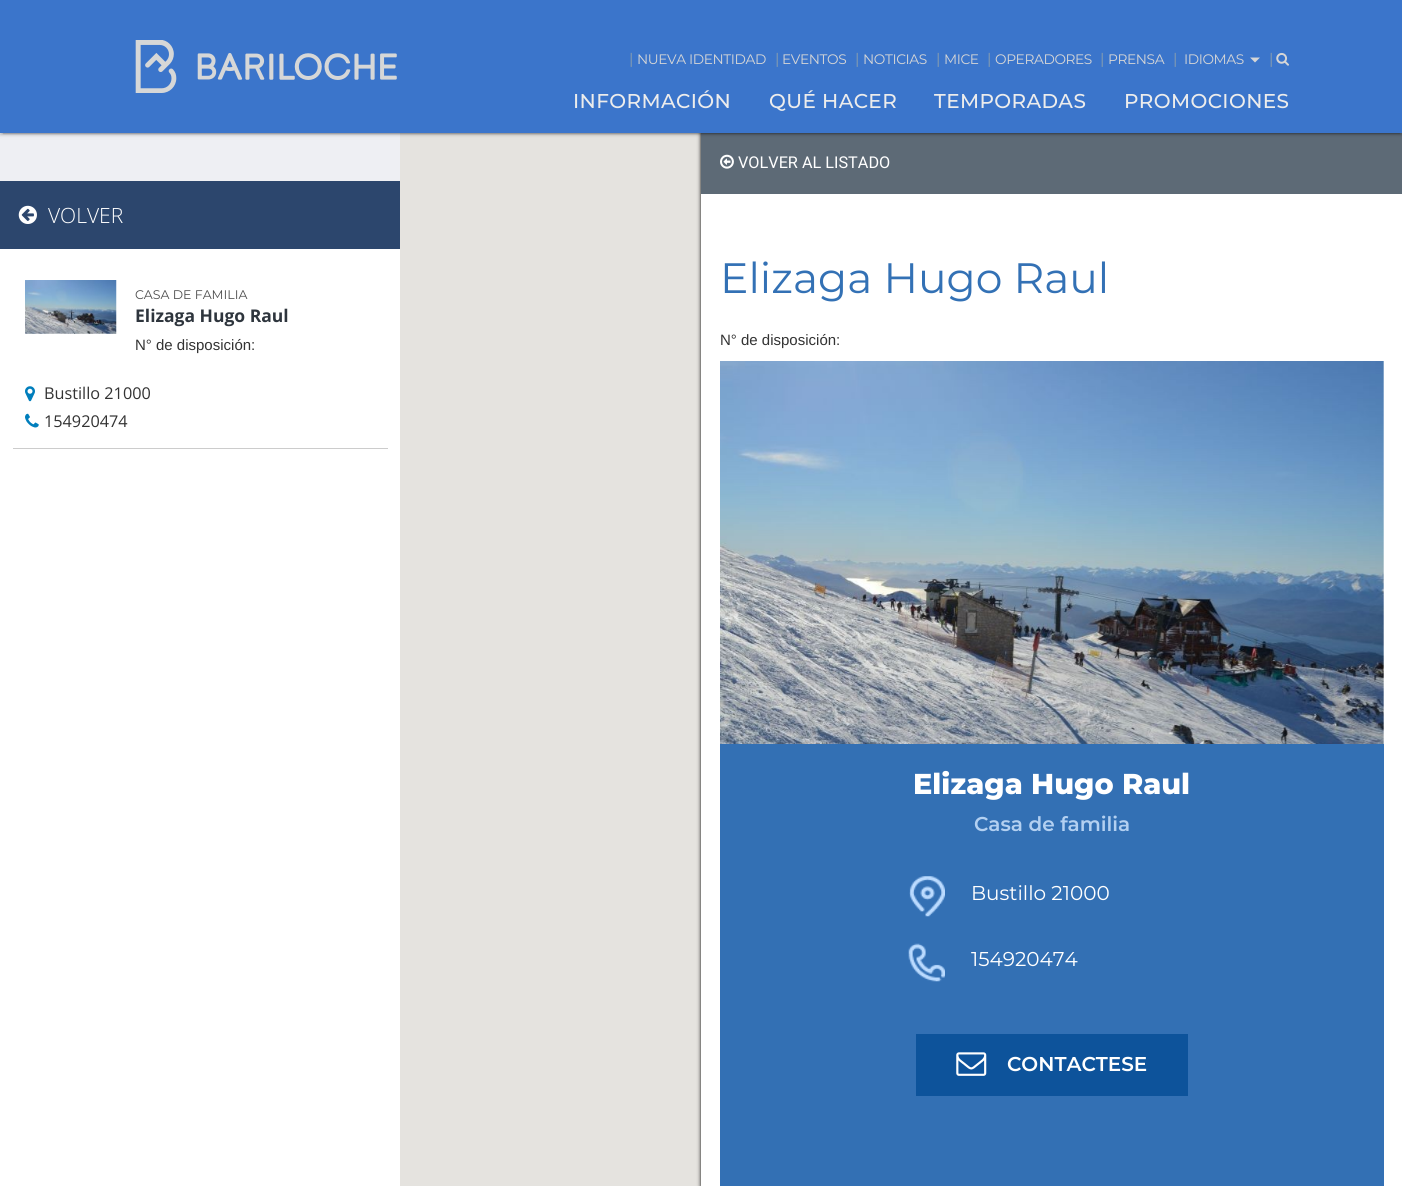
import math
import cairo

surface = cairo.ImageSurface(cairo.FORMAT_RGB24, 1402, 1186)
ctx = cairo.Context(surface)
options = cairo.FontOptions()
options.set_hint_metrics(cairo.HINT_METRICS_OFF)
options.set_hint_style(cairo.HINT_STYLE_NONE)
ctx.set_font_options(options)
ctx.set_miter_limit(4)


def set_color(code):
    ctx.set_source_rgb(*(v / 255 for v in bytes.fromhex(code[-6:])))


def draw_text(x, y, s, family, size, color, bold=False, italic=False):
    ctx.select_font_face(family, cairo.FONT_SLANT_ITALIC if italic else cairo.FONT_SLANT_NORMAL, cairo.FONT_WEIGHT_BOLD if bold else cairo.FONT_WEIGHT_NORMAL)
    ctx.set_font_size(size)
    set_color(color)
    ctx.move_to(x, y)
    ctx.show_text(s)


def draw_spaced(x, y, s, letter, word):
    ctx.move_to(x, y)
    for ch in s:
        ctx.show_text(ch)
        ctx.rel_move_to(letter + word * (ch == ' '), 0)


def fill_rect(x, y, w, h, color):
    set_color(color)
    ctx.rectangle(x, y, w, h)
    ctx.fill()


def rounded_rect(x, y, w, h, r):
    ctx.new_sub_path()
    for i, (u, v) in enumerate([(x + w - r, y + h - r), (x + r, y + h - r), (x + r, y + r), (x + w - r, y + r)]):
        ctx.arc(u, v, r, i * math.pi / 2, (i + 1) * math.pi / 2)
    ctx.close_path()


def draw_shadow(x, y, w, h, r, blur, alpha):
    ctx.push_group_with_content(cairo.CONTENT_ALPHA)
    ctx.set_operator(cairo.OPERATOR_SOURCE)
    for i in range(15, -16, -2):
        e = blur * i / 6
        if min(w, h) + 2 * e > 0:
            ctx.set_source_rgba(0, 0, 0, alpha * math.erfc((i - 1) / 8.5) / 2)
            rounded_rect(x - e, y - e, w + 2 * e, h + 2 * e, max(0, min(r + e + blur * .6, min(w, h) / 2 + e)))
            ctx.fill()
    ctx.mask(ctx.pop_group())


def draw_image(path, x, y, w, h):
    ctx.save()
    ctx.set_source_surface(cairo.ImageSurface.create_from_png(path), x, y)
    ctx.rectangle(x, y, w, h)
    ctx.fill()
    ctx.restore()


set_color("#eeeff3")
ctx.paint()
fill_rect(400, 133, 301, 1053, "#e5e3df")
set_color("#000000")
draw_shadow(701, 133, 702, 1053, 0, 2, 1)
fill_rect(701, 133, 701, 61, "#5d6a76")
set_color("#000000")
draw_shadow(0, 1, 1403, 133, 0, 3, 0.12)
draw_shadow(3, 6, 1397, 128, 0, 0.5, 0.2)
draw_shadow(0, 3, 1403, 132, 0, 1, 0.14)
fill_rect(0, 0, 1402, 133, "#3b75cb")
draw_image("assets/img1.png", 135, 40, 262, 53)
ctx.select_font_face("Montserrat")
ctx.set_font_size(15)
set_color("#899fae")
draw_spaced(629, 64, "|", -0.4, 0)
ctx.set_font_size(13.75)
set_color("#d6d6d6")
draw_spaced(637, 64, "NUEVA IDENTIDAD", -0.4, 0)
ctx.set_font_size(15)
set_color("#899fae")
draw_spaced(775, 64, "|", -0.4, 0)
ctx.set_font_size(13.75)
set_color("#d6d6d6")
draw_spaced(782, 64, "EVENTOS", -0.4, 0)
ctx.set_font_size(15)
set_color("#899fae")
draw_spaced(855, 64, "|", -0.4, 0)
ctx.set_font_size(13.75)
set_color("#d6d6d6")
draw_spaced(863, 64, "NOTICIAS", -0.4, 0)
ctx.set_font_size(15)
set_color("#899fae")
draw_spaced(936, 64, "|", -0.4, 0)
ctx.set_font_size(13.75)
set_color("#d6d6d6")
draw_spaced(944, 64, "MICE", -0.4, 0)
ctx.set_font_size(15)
set_color("#899fae")
draw_spaced(987, 64, "|", -0.4, 0)
ctx.set_font_size(13.75)
set_color("#d6d6d6")
draw_spaced(995, 64, "OPERADORES", -0.4, 0)
ctx.set_font_size(15)
set_color("#899fae")
draw_spaced(1100, 64, "|", -0.4, 0)
ctx.set_font_size(13.75)
set_color("#d6d6d6")
draw_spaced(1108, 64, "PRENSA", -0.4, 0)
ctx.set_font_size(15)
set_color("#899fae")
draw_spaced(1173, 64, "|", -0.4, 0)
ctx.set_font_size(13.75)
set_color("#d6d6d6")
draw_spaced(1184, 64, "IDIOMAS", -0.4, 0)
ctx.new_path()
ctx.move_to(1250, 57.5)
ctx.line_to(1260, 57.5)
ctx.line_to(1255, 62.5)
ctx.close_path()
ctx.fill()
ctx.set_font_size(15)
set_color("#899fae")
draw_spaced(1269, 64, "|", -0.4, 0)
draw_image("assets/img2.png", 1276, 52, 13, 14)
ctx.select_font_face("Montserrat Medium")
ctx.set_font_size(20)
set_color("#ececec")
draw_spaced(573, 108, "INFORMACIÓN", 0.4, 0)
draw_spaced(769, 108, "QUÉ HACER", 0.4, 0)
draw_spaced(934, 108, "TEMPORADAS", 0.4, 0)
draw_spaced(1124, 108, "PROMOCIONES", 0.4, 0)
fill_rect(0, 249, 400, 937, "#ffffff")
fill_rect(0, 181, 400, 68, "#2c466d")
draw_image("assets/img3.png", 18, 205, 19, 19)
draw_text(48, 223, "VOLVER", "Open Sans Light", 21, "#ffffff")
fill_rect(13, 448, 375, 1, "#cccccc")
draw_image("assets/img4.png", 25, 280, 92, 54)
draw_text(135, 299, "CASA DE FAMILIA", "Montserrat", 12.5, "#4d4d4d")
draw_text(135, 322, "Elizaga Hugo Raul", "Open Sans", 17.5, "#2e353d", bold=True)
draw_text(135, 350, "N° de disposición:", "Liberation Sans", 15, "#333333")
draw_image("assets/img5.png", 25, 386, 10, 16)
draw_text(44, 399, "Bustillo 21000", "Open Sans", 16.25, "#333333")
draw_image("assets/img6.png", 25, 413, 14, 15)
draw_text(44, 427, "154920474", "Open Sans", 16.25, "#333333")
fill_rect(701, 194, 701, 992, "#ffffff")
draw_image("assets/img7.png", 720, 154, 14, 15)
draw_text(738, 168, "VOLVER AL LISTADO", "Roboto", 16.25, "#ffffff")
draw_text(720, 293, "Elizaga Hugo Raul", "Montserrat", 42.5, "#3371b5")
draw_text(720, 345, "N° de disposición:", "Liberation Sans", 15, "#333333")
draw_image("assets/img8.png", 720, 361, 664, 383)
fill_rect(720, 744, 664, 442, "#3370b4")
draw_text(913, 794, "Elizaga Hugo Raul", "Montserrat ExtraBold", 28.75, "#ffffff")
draw_text(974, 831, "Casa de familia", "Montserrat SemiBold", 20, "#b3d0f1")
draw_image("assets/img9.png", 909, 876, 36, 41)
draw_text(971, 900, "Bustillo 21000", "Montserrat", 20, "#ffffff")
draw_image("assets/img10.png", 908, 943, 37, 39)
draw_text(971, 966, "154920474", "Montserrat", 20, "#ffffff")
fill_rect(916, 1034, 272, 62, "#0d539b")
draw_image("assets/img11.png", 956, 1052, 31, 24)
draw_text(1007, 1071, "CONTACTESE", "Montserrat SemiBold", 20, "#ffffff")
surface.write_to_png("output.png")
